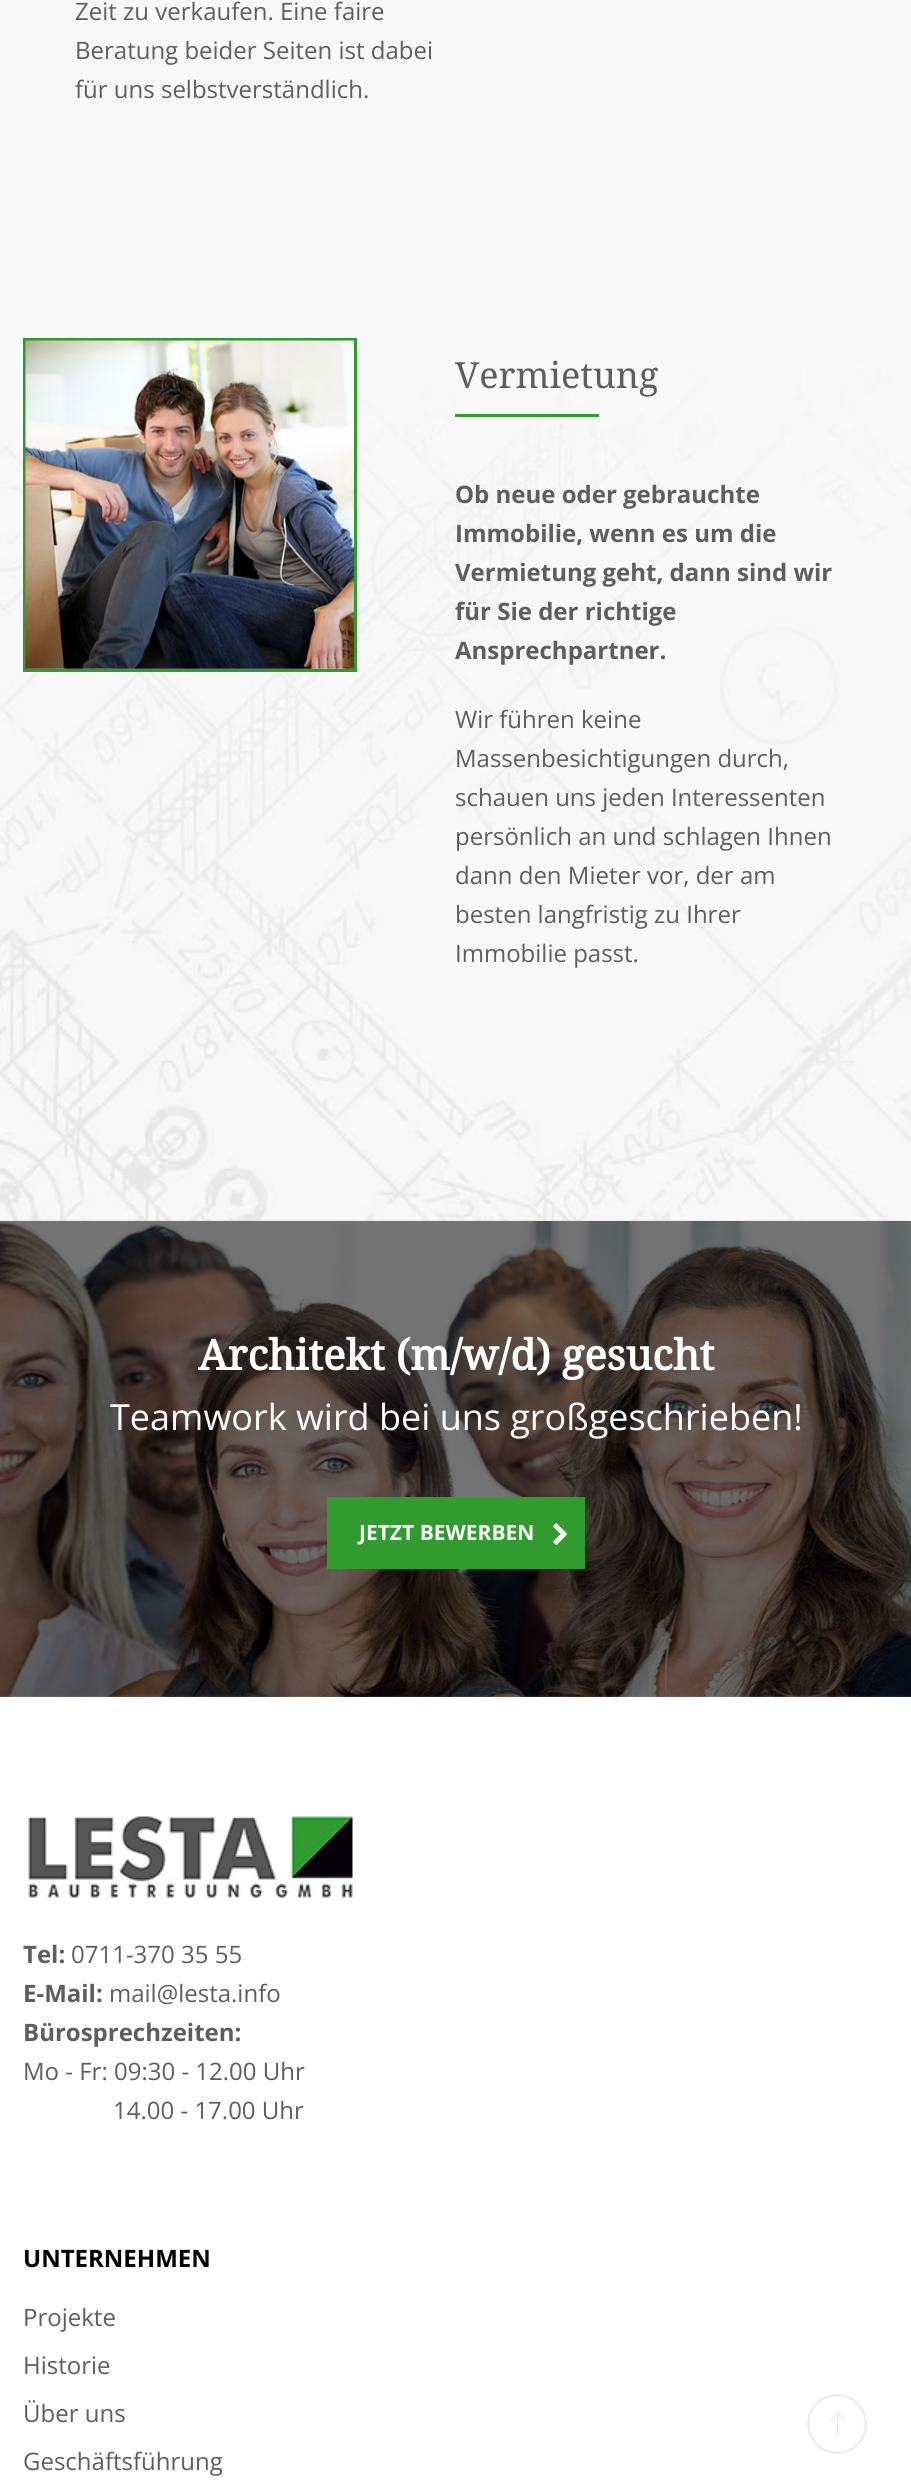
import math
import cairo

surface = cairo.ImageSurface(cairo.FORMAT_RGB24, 911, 2484)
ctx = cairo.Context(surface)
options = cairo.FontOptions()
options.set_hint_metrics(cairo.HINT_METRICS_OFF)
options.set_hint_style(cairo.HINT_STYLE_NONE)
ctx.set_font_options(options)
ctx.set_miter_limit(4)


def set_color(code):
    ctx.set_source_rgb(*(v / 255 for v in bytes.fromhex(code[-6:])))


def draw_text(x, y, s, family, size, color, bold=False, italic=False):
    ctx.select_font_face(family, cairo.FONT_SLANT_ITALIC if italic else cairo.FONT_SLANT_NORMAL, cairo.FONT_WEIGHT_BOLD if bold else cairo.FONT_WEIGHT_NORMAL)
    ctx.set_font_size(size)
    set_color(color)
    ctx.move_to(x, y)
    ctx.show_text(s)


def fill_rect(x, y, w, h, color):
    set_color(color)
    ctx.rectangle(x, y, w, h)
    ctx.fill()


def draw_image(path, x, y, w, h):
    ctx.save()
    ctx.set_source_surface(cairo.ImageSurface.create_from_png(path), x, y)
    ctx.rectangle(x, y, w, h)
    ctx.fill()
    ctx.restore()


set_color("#ffffff")
ctx.paint()
fill_rect(0, 0, 911, 1697, "#f8f8f8")
draw_image("assets/img1.png", 0, 363, 911, 1334)
draw_text(75, 20, "Zeit zu verkaufen. Eine faire", "Open Sans", 24, "#5e5e5e")
draw_text(75, 59, "Beratung beider Seiten ist dabei", "Open Sans", 24, "#5e5e5e")
draw_text(75, 98, "für uns selbstverständlich.", "Open Sans", 24, "#5e5e5e")
ctx.rectangle(24.5, 339.5, 331, 331)
set_color("#329b30")
ctx.set_line_width(3)
ctx.stroke()
draw_image("assets/img2.png", 25, 340, 329, 329)
draw_text(455, 388, "Vermietung", "Noto Serif", 36, "#5e5e5e")
fill_rect(455, 414, 144, 3, "#329b30")
draw_text(455, 503, "Ob neue oder gebrauchte", "Open Sans", 24, "#5e5e5e", bold=True)
draw_text(455, 542, "Immobilie, wenn es um die", "Open Sans", 24, "#5e5e5e", bold=True)
draw_text(455, 581, "Vermietung geht, dann sind wir", "Open Sans", 24, "#5e5e5e", bold=True)
draw_text(455, 620, "für Sie der richtige", "Open Sans", 24, "#5e5e5e", bold=True)
draw_text(455, 659, "Ansprechpartner.", "Open Sans", 24, "#5e5e5e", bold=True)
draw_text(455, 728, "Wir führen keine", "Open Sans", 24, "#5e5e5e")
draw_text(455, 767, "Massenbesichtigungen durch,", "Open Sans", 24, "#5e5e5e")
draw_text(455, 806, "schauen uns jeden Interessenten", "Open Sans", 24, "#5e5e5e")
draw_text(455, 845, "persönlich an und schlagen Ihnen", "Open Sans", 24, "#5e5e5e")
draw_text(455, 884, "dann den Mieter vor, der am", "Open Sans", 24, "#5e5e5e")
draw_text(455, 923, "besten langfristig zu Ihrer", "Open Sans", 24, "#5e5e5e")
draw_text(455, 962, "Immobilie passt.", "Open Sans", 24, "#5e5e5e")
draw_image("assets/img3.png", 0, 1220, 911, 477)
draw_text(198, 1370, "Architekt (m/w/d) gesucht", "Noto Serif", 42, "#ffffff", bold=True)
draw_text(110, 1430, "Teamwork wird bei uns großgeschrieben!", "Open Sans", 36, "#ffffff")
fill_rect(327, 1497, 258, 72, "#329b30")
draw_text(359, 1540, "JETZT BEWERBEN", "Open Sans", 21, "#ffffff", bold=True)
draw_image("assets/img4.png", 553, 1523, 14, 22)
draw_image("assets/img5.png", 28, 1816, 325, 82)
draw_text(23, 1963, "Tel:", "Open Sans", 24, "#5e5e5e", bold=True)
draw_text(71, 1963, "0711-370 35 55", "Open Sans", 24, "#5e5e5e")
draw_text(23, 2002, "E-Mail:", "Open Sans", 24, "#5e5e5e", bold=True)
draw_text(109, 2002, "mail@lesta.info", "Open Sans", 24, "#5e5e5e")
draw_text(23, 2041, "Bürosprechzeiten:", "Open Sans", 24, "#5e5e5e", bold=True)
draw_text(23, 2080, "Mo - Fr: 09:30 - 12.00 Uhr", "Open Sans", 24, "#5e5e5e")
draw_text(113, 2119, "14.00 - 17.00 Uhr", "Open Sans", 24, "#5e5e5e")
draw_text(23, 2267, "UNTERNEHMEN", "Open Sans", 24, "#000000", bold=True)
draw_text(23, 2326, "Projekte", "Open Sans", 24, "#5e5e5e")
draw_text(23, 2374, "Historie", "Open Sans", 24, "#5e5e5e")
draw_text(23, 2422, "Über uns", "Open Sans", 24, "#5e5e5e")
draw_text(23, 2470, "Geschäftsführung", "Open Sans", 24, "#5e5e5e")
draw_image("assets/img6.png", 807, 2394, 60, 60)
surface.write_to_png("output.png")
